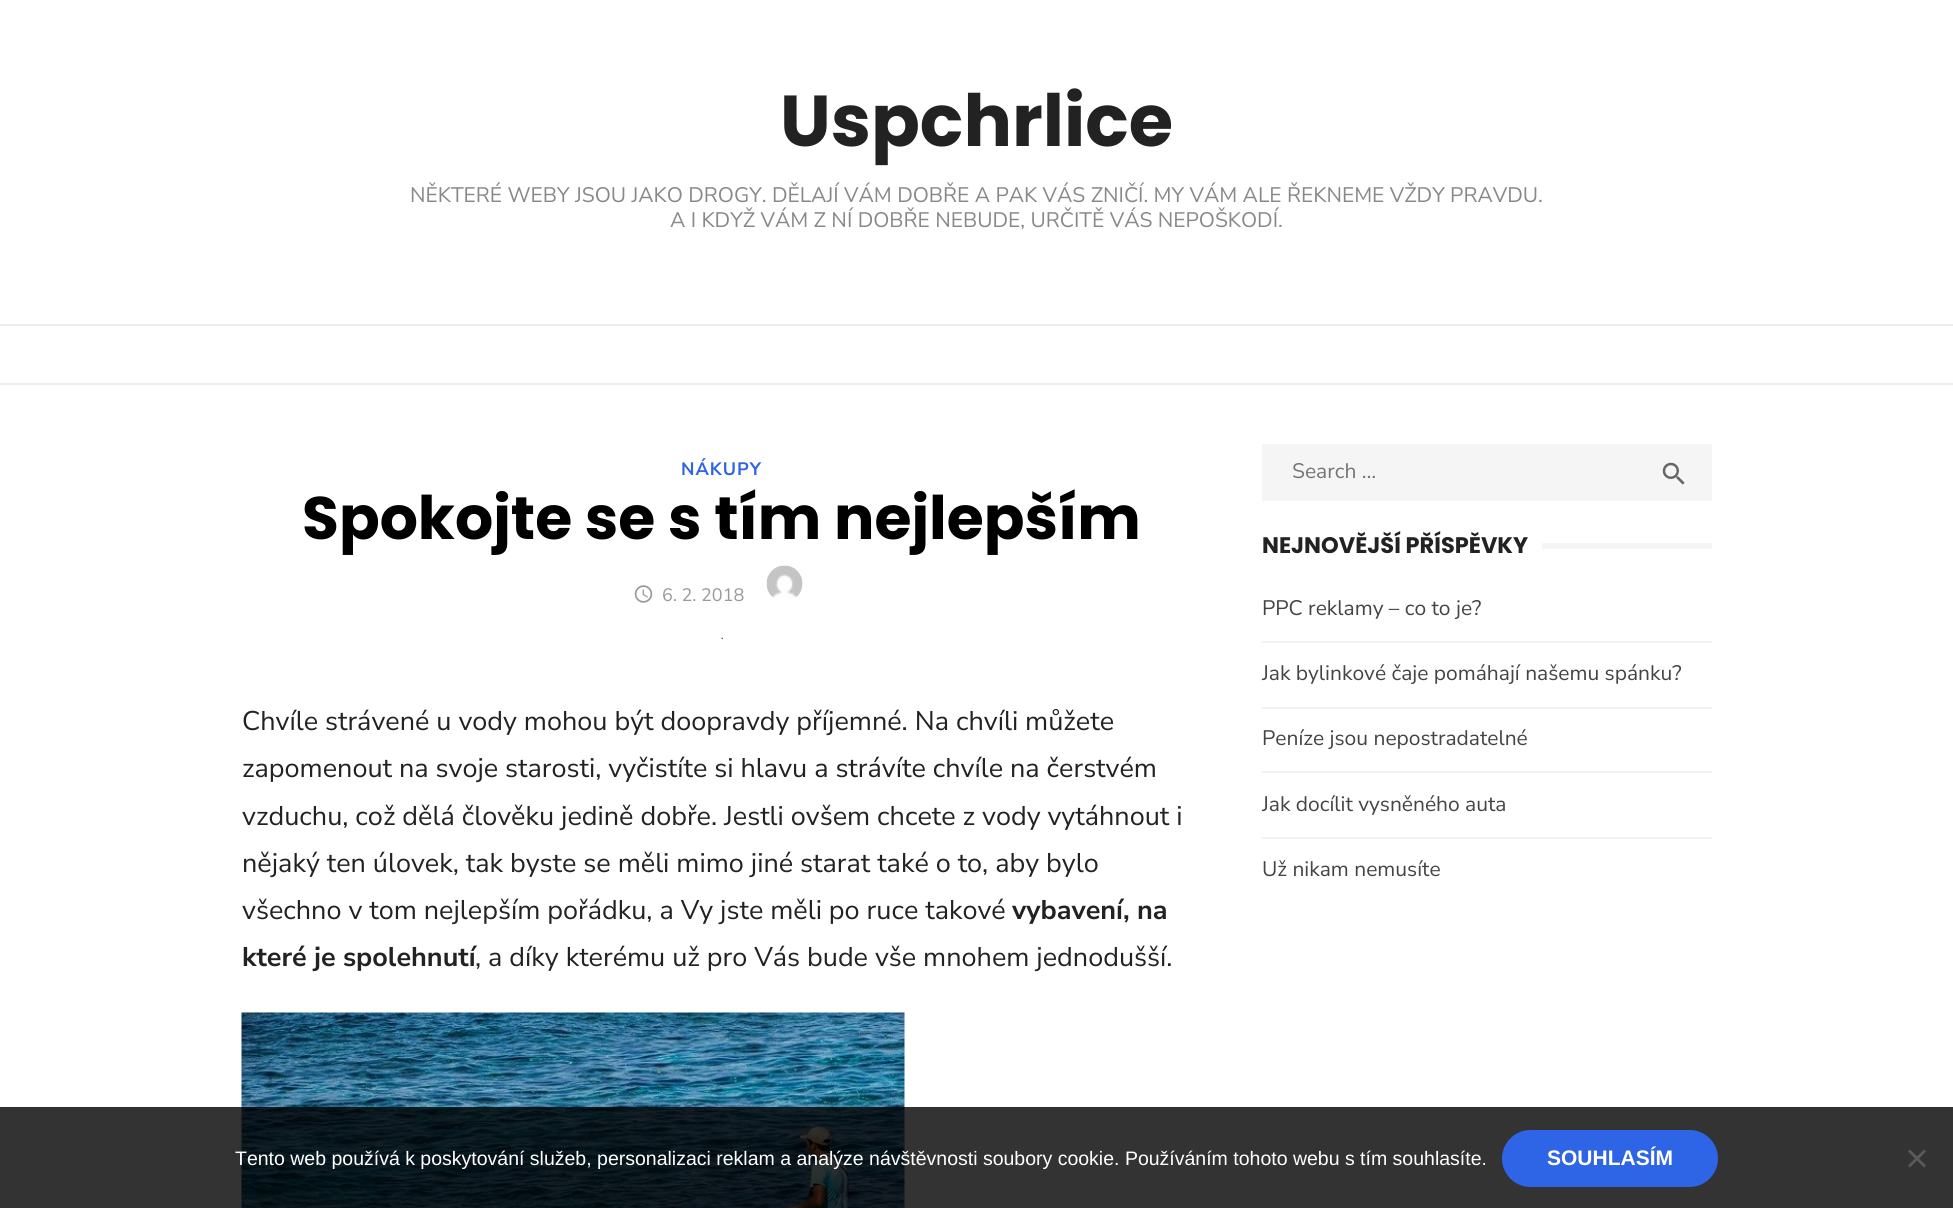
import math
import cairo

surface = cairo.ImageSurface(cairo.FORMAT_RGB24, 1953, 1208)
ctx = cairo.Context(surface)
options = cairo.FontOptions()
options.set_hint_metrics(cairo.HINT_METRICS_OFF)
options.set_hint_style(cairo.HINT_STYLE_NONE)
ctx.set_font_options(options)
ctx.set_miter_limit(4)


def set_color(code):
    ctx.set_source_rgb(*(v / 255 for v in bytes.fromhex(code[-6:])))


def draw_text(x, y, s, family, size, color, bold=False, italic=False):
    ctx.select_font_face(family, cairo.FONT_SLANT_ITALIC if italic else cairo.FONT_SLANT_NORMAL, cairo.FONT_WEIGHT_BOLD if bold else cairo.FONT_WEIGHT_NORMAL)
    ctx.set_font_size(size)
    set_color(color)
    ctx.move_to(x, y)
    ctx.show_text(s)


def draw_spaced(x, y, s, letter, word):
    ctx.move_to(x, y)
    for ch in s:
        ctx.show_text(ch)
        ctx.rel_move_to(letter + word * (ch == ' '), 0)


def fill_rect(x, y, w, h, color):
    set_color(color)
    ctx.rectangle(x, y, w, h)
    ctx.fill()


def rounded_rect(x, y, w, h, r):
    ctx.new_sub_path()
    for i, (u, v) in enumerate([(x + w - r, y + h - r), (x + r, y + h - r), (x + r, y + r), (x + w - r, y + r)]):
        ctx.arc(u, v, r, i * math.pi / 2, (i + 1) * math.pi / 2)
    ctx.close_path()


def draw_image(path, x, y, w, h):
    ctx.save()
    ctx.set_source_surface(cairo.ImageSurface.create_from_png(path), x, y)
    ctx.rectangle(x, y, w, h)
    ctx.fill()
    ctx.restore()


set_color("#ffffff")
ctx.paint()
draw_text(780, 146, "Uspchrlice", "Poppins", 72, "#222222", bold=True)
draw_text(410, 202, "NĚKTERÉ WEBY JSOU JAKO DROGY. DĚLAJÍ VÁM DOBŘE A PAK VÁS ZNIČÍ. MY VÁM ALE ŘEKNEME VŽDY PRAVDU.", "Nunito Sans", 21, "#888888")
draw_text(670, 227, "A I KDYŽ VÁM Z NÍ DOBŘE NEBUDE, URČITĚ VÁS NEPOŠKODÍ.", "Nunito Sans", 21, "#888888")
fill_rect(0, 324, 1953, 2, "#ededed")
fill_rect(0, 383, 1953, 2, "#ededed")
ctx.select_font_face("Nunito Sans", cairo.FONT_SLANT_NORMAL, cairo.FONT_WEIGHT_BOLD)
ctx.set_font_size(18)
set_color("#2e64e6")
draw_spaced(681, 475, "NÁKUPY", 1, 0)
draw_text(302, 539, "Spokojte se s tím nejlepším", "Poppins", 60, "#000000", bold=True)
draw_image("assets/img1.png", 634, 585, 19, 18)
draw_text(662, 601, "6. 2. 2018", "Nunito Sans", 18, "#999999")
draw_image("assets/img2.png", 766, 565, 37, 33)
draw_image("assets/img3.png", 721, 637, 2, 2)
draw_text(242, 730, "Chvíle strávené u vody mohou být doopravdy příjemné. Na chvíli můžete", "Nunito Sans", 27, "#222222")
draw_text(242, 777, "zapomenout na svoje starosti, vyčistíte si hlavu a strávíte chvíle na čerstvém", "Nunito Sans", 27, "#222222")
draw_text(242, 825, "vzduchu, což dělá člověku jedině dobře. Jestli ovšem chcete z vody vytáhnout i", "Nunito Sans", 27, "#222222")
draw_text(242, 872, "nějaký ten úlovek, tak byste se měli mimo jiné starat také o to, aby bylo", "Nunito Sans", 27, "#222222")
draw_text(242, 919, "všechno v tom nejlepším pořádku, a Vy jste měli po ruce takové", "Nunito Sans", 27, "#222222")
draw_text(1012, 919, "vybavení, na", "Nunito Sans", 27, "#222222", bold=True)
draw_text(242, 966, "které je spolehnutí", "Nunito Sans", 27, "#222222", bold=True)
draw_text(475, 966, ", a díky kterému už pro Vás bude vše mnohem jednodušší.", "Nunito Sans", 27, "#222222")
draw_image("assets/img4.png", 241, 1012, 664, 196)
fill_rect(1262, 444, 450, 57, "#f5f5f5")
draw_text(1292, 478, "Search …", "Nunito Sans", 21, "#757575")
draw_image("assets/img5.png", 1662, 462, 23, 23)
draw_text(1262, 553, "NEJNOVĚJŠÍ PŘÍSPĚVKY", "Poppins", 22.5, "#222222", bold=True)
fill_rect(1542, 543, 170, 6, "#f5f5f5")
fill_rect(1262, 641, 450, 2, "#f2f2f2")
draw_text(1262, 615, "PPC reklamy – co to je?", "Nunito Sans", 21, "#444444")
fill_rect(1262, 707, 450, 2, "#f2f2f2")
draw_text(1262, 680, "Jak bylinkové čaje pomáhají našemu spánku?", "Nunito Sans", 21, "#444444")
fill_rect(1262, 771, 450, 2, "#f2f2f2")
draw_text(1262, 745, "Peníze jsou nepostradatelné", "Nunito Sans", 21, "#444444")
fill_rect(1262, 837, 450, 2, "#f2f2f2")
draw_text(1262, 811, "Jak docílit vysněného auta", "Nunito Sans", 21, "#444444")
draw_text(1262, 876, "Už nikam nemusíte", "Nunito Sans", 21, "#444444")
ctx.set_source_rgba(0, 0, 0, 0.8)
ctx.rectangle(0, 1107, 1953, 101)
ctx.fill()
draw_text(235, 1165, "Tento web používá k poskytování služeb, personalizaci reklam a analýze návštěvnosti soubory cookie. Používáním tohoto webu s tím souhlasíte.", "Liberation Sans", 19.5, "#ffffff")
set_color("#2e64e6")
rounded_rect(1502, 1130, 216, 57, 28.5)
ctx.fill()
draw_text(1547, 1165, "SOUHLASÍM", "Liberation Sans", 21, "#ffffff", bold=True)
set_color("#5a5a5a")
ctx.new_path()
ctx.move_to(1924, 1149.5)
ctx.line_to(1926, 1151.5)
ctx.line_to(1910, 1167.5)
ctx.line_to(1908, 1165.5)
ctx.close_path()
ctx.fill()
ctx.new_path()
ctx.move_to(1908, 1151.5)
ctx.line_to(1910, 1149.5)
ctx.line_to(1926, 1165.5)
ctx.line_to(1924, 1167.5)
ctx.close_path()
ctx.fill()
surface.write_to_png("output.png")
